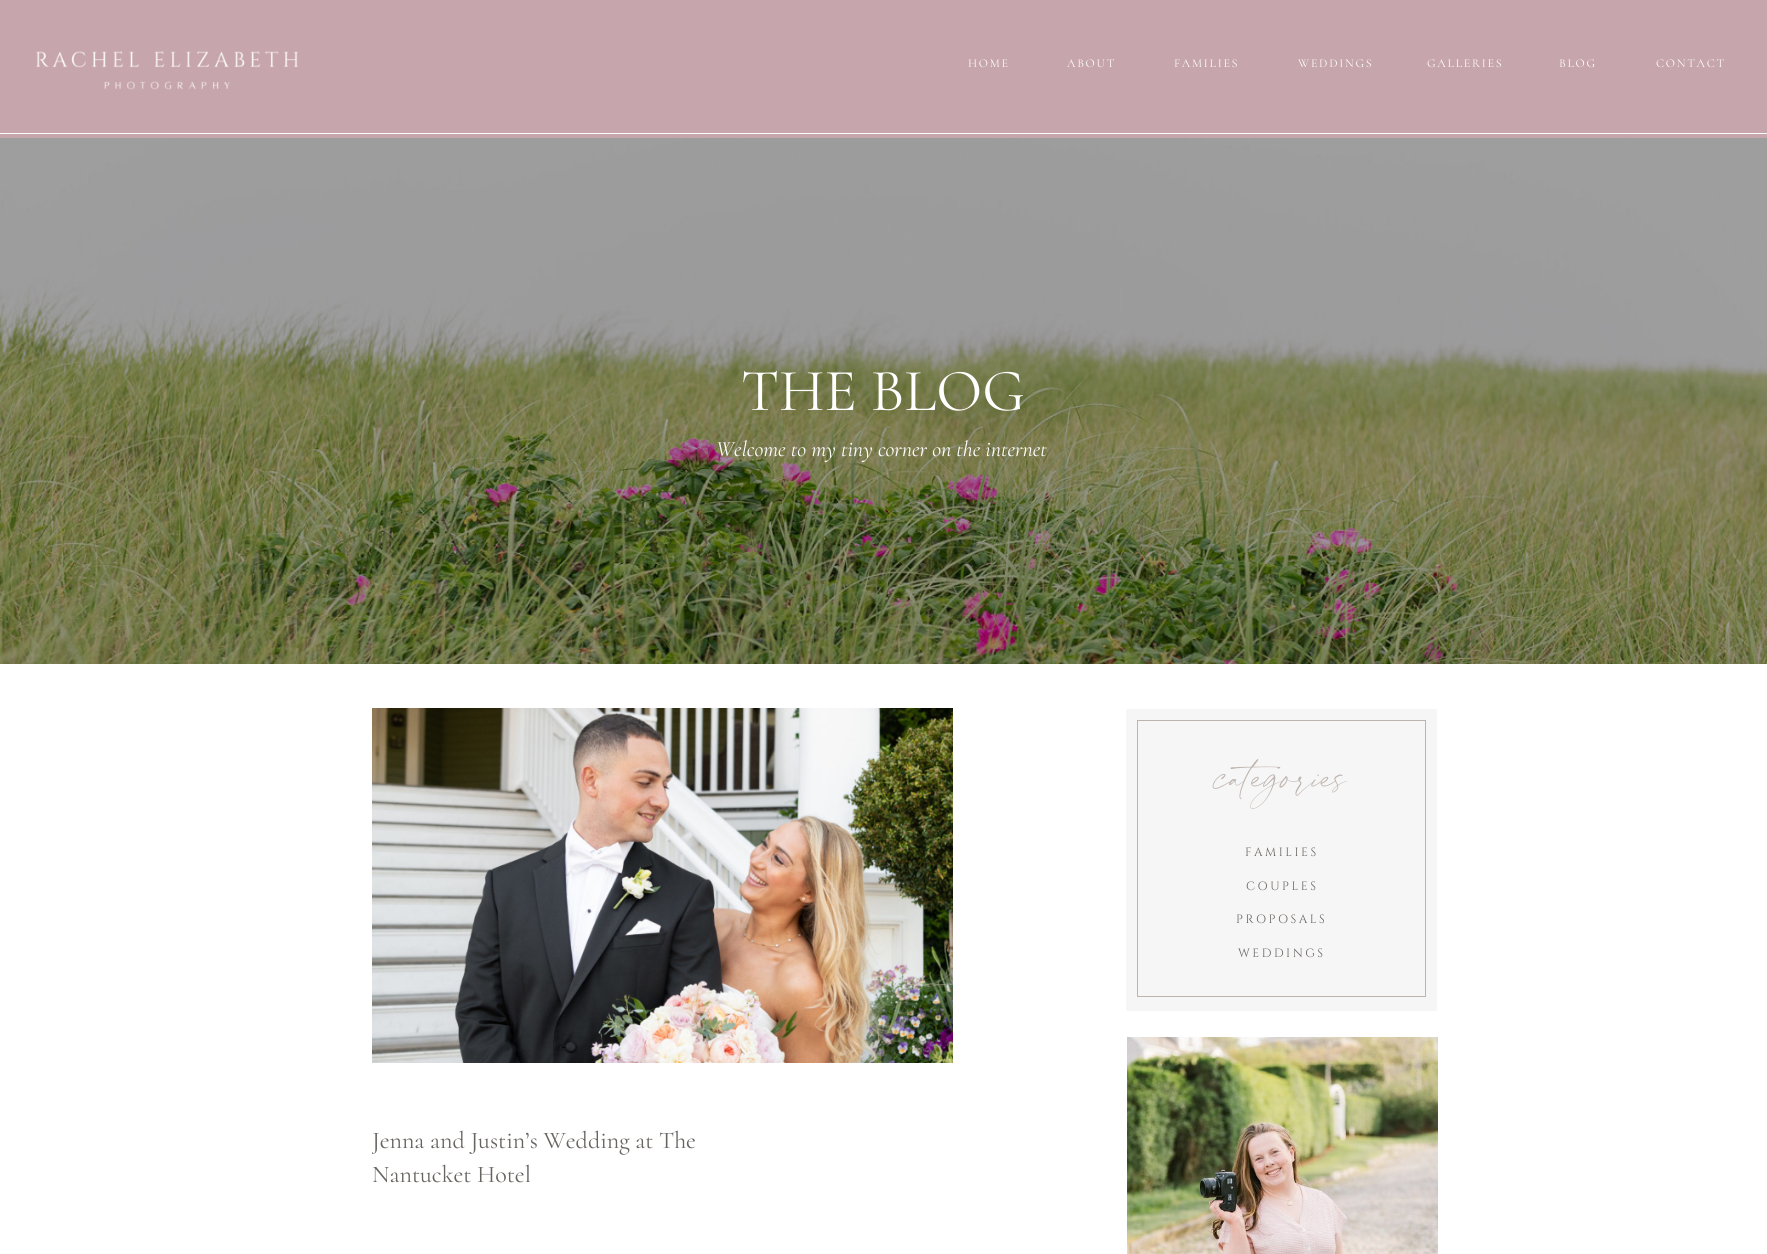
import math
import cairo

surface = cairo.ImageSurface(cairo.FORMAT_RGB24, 1767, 1254)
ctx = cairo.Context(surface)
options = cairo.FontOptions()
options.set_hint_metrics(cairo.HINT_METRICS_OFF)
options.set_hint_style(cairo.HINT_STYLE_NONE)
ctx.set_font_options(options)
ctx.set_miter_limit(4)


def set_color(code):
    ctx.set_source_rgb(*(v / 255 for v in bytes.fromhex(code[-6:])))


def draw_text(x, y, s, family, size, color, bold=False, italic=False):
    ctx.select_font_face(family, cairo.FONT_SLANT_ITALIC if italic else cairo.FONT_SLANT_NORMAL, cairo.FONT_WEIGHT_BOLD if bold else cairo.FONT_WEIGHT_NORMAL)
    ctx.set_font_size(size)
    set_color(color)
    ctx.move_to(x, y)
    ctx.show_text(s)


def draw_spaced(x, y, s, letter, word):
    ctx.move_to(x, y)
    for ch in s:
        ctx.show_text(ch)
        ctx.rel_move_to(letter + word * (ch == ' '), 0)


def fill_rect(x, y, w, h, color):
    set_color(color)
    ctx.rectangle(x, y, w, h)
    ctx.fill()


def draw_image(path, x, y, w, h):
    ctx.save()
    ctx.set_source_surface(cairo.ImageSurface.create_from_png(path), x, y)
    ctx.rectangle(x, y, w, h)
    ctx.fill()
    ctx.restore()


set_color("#ffffff")
ctx.paint()
fill_rect(0, 0, 1767, 138, "#c6a5ac")
draw_image("assets/img1.png", 36, 51, 262, 39)
ctx.select_font_face("Cormorant Light")
ctx.set_font_size(12)
set_color("#ffffff")
draw_spaced(968, 67, "HOME", 1.75, 0)
draw_spaced(1067, 67, "ABOUT", 1.75, 0)
draw_spaced(1174, 67, "FAMILIES", 1.75, 0)
draw_spaced(1298, 67, "WEDDINGS", 1.75, 0)
draw_spaced(1427, 67, "GALLERIES", 1.75, 0)
draw_spaced(1559, 67, "BLOG", 1.75, 0)
draw_spaced(1656, 67, "CONTACT", 1.75, 0)
fill_rect(0, 133, 1767, 1, "#ffffff")
fill_rect(0, 138, 1767, 526, "#000000")
draw_image("assets/img2.png", 0, 138, 1767, 526)
draw_text(741, 410, "THE BLOG", "Cormorant Light", 60, "#ffffff")
draw_text(716, 456, "Welcome to my tiny corner on the internet", "Cormorant Garamond Light", 22, "#ffffff", italic=True)
fill_rect(1126, 709, 311, 302, "#f7f6f6")
ctx.rectangle(1137.5, 720.5, 288, 276)
set_color("#bdb4ae")
ctx.set_line_width(1)
ctx.stroke()
draw_image("assets/img3.png", 1212, 759, 136, 50)
ctx.select_font_face("Cinzel")
ctx.set_font_size(12)
set_color("#676460")
draw_spaced(1245, 856, "FAMILIES", 2.5, 0)
draw_spaced(1246, 890, "COUPLES", 2.5, 0)
draw_spaced(1236, 923, "PROPOSALS", 2.5, 0)
draw_spaced(1238, 957, "WEDDINGS", 2.5, 0)
draw_image("assets/img4.png", 1127, 1037, 311, 217)
draw_image("assets/img5.png", 372, 708, 581, 355)
ctx.save()
ctx.rectangle(372, 1124, 388, 69)
ctx.clip()
draw_text(372, 1148, "Jenna and Justin’s Wedding at The", "Cormorant Light", 24, "#676460")
ctx.restore()
draw_text(372, 1182, "Nantucket Hotel", "Cormorant Light", 24, "#676460")
surface.write_to_png("output.png")
